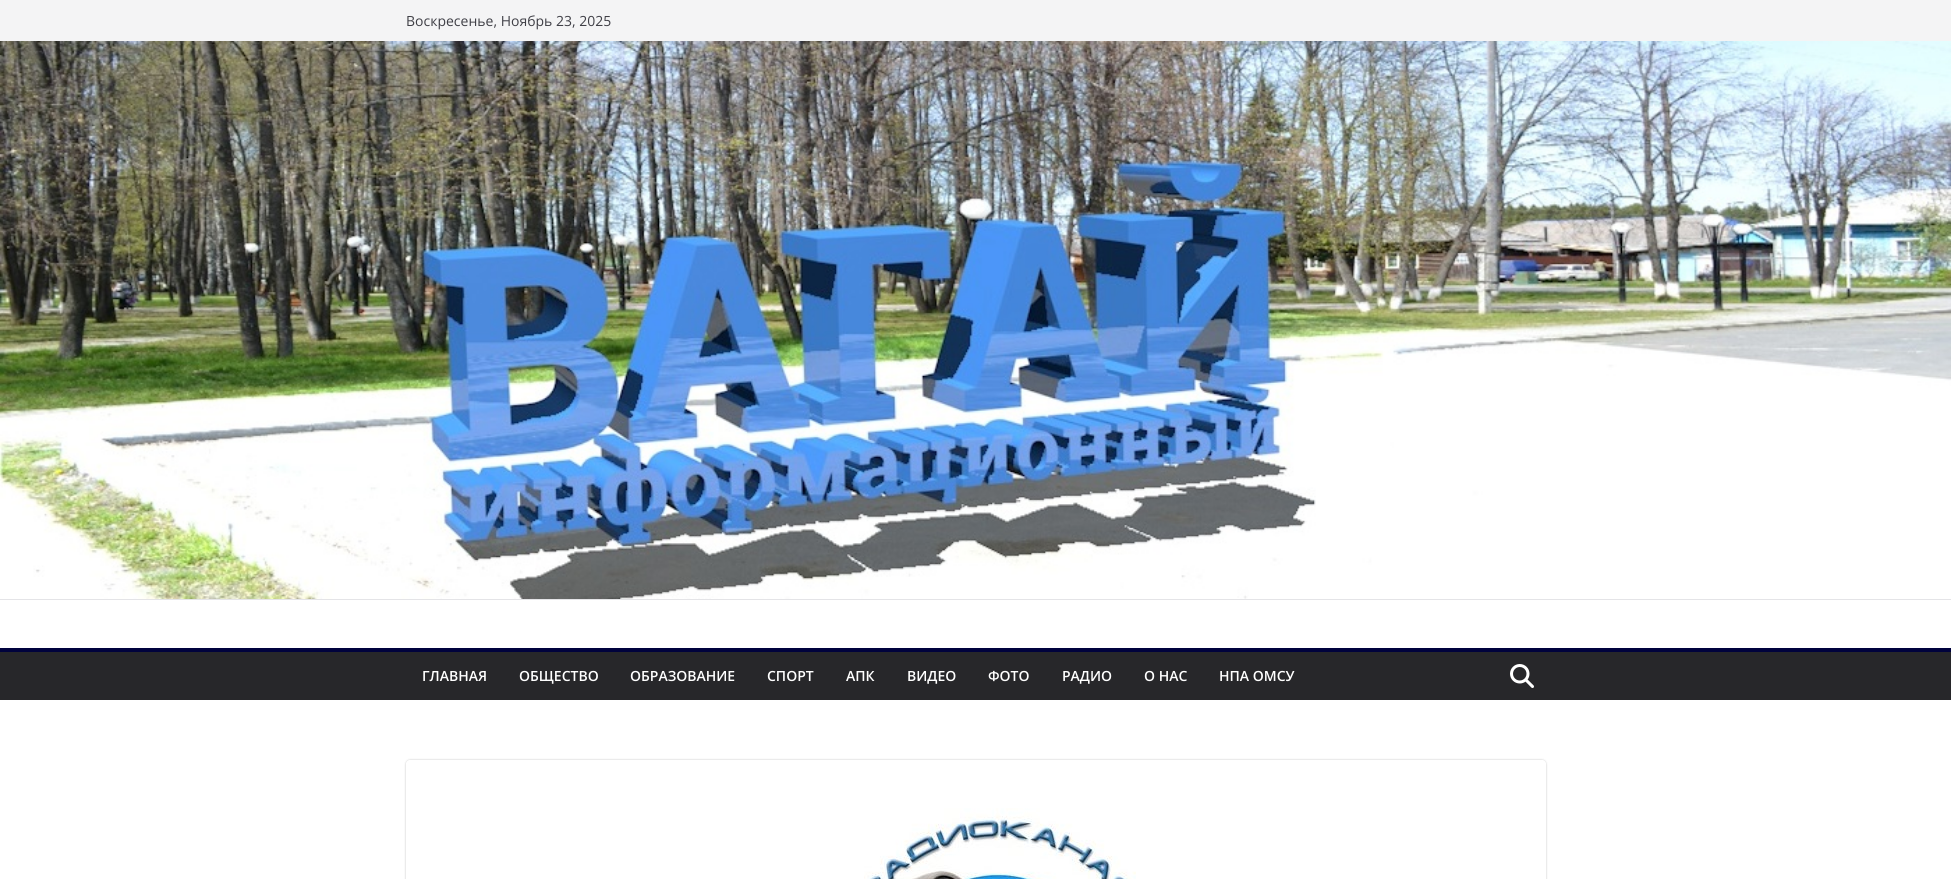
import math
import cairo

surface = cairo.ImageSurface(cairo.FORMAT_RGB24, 1951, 879)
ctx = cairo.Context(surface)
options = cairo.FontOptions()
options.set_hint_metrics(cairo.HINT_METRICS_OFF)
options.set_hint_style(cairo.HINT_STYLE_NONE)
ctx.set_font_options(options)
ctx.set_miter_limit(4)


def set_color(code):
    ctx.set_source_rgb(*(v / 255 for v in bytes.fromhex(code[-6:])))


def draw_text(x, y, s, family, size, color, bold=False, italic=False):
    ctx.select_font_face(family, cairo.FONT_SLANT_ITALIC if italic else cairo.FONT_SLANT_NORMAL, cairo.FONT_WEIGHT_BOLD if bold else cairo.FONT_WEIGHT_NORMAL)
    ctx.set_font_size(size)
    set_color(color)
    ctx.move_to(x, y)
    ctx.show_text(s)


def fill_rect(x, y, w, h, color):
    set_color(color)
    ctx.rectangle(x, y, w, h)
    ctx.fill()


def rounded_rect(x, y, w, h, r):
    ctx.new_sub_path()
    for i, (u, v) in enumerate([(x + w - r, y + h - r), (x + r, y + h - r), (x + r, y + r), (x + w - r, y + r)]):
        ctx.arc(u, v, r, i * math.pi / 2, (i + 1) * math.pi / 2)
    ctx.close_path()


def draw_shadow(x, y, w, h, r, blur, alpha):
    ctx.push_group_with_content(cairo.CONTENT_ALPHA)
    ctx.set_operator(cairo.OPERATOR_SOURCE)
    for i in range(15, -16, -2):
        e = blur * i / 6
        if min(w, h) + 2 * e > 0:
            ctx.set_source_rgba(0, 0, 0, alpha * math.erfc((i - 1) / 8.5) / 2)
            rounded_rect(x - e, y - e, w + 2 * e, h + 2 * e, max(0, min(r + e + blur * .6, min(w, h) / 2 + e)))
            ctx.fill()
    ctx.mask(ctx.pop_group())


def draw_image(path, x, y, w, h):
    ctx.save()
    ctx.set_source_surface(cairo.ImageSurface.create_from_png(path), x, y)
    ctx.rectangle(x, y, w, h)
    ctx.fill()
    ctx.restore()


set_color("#ffffff")
ctx.paint()
fill_rect(0, 0, 1951, 41, "#f4f4f5")
draw_text(406, 26, "Воскресенье, Ноябрь 23, 2025", "Open Sans", 14, "#3f3f46")
draw_image("assets/img1.png", 0, 41, 1951, 558)
fill_rect(0, 599, 1951, 1, "#e4e4e7")
fill_rect(0, 652, 1951, 48, "#27272a")
fill_rect(0, 648, 1951, 4, "#00023d")
draw_text(422, 681, "ГЛАВНАЯ", "Open Sans SemiBold", 14, "#ffffff")
draw_text(519, 681, "ОБЩЕСТВО", "Open Sans SemiBold", 14, "#ffffff")
draw_text(630, 681, "ОБРАЗОВАНИЕ", "Open Sans SemiBold", 14, "#ffffff")
draw_text(767, 681, "СПОРТ", "Open Sans SemiBold", 14, "#ffffff")
draw_text(846, 681, "АПК", "Open Sans SemiBold", 14, "#ffffff")
draw_text(907, 681, "ВИДЕО", "Open Sans SemiBold", 14, "#ffffff")
draw_text(988, 681, "ФОТО", "Open Sans SemiBold", 14, "#ffffff")
draw_text(1062, 681, "РАДИО", "Open Sans SemiBold", 14, "#ffffff")
draw_text(1144, 681, "О НАС", "Open Sans SemiBold", 14, "#ffffff")
draw_text(1219, 681, "НПА ОМСУ", "Open Sans SemiBold", 14, "#ffffff")
draw_image("assets/img2.png", 1510, 664, 24, 24)
ctx.save()
ctx.set_fill_rule(cairo.FILL_RULE_EVEN_ODD)
ctx.new_path()
ctx.move_to(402, 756)
ctx.line_to(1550, 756)
ctx.line_to(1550, 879)
ctx.line_to(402, 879)
ctx.close_path()
ctx.move_to(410, 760)
ctx.line_to(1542, 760)
ctx.curve_to(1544, 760, 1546, 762, 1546, 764)
ctx.line_to(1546, 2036)
ctx.curve_to(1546, 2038, 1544, 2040, 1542, 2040)
ctx.line_to(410, 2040)
ctx.curve_to(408, 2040, 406, 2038, 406, 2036)
ctx.line_to(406, 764)
ctx.curve_to(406, 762, 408, 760, 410, 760)
ctx.close_path()
ctx.clip()
set_color("#000000")
draw_shadow(406, 760, 1140, 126, 4, 1, 0.24)
ctx.restore()
draw_image("assets/img3.png", 864, 808, 272, 71)
surface.write_to_png("output.png")
